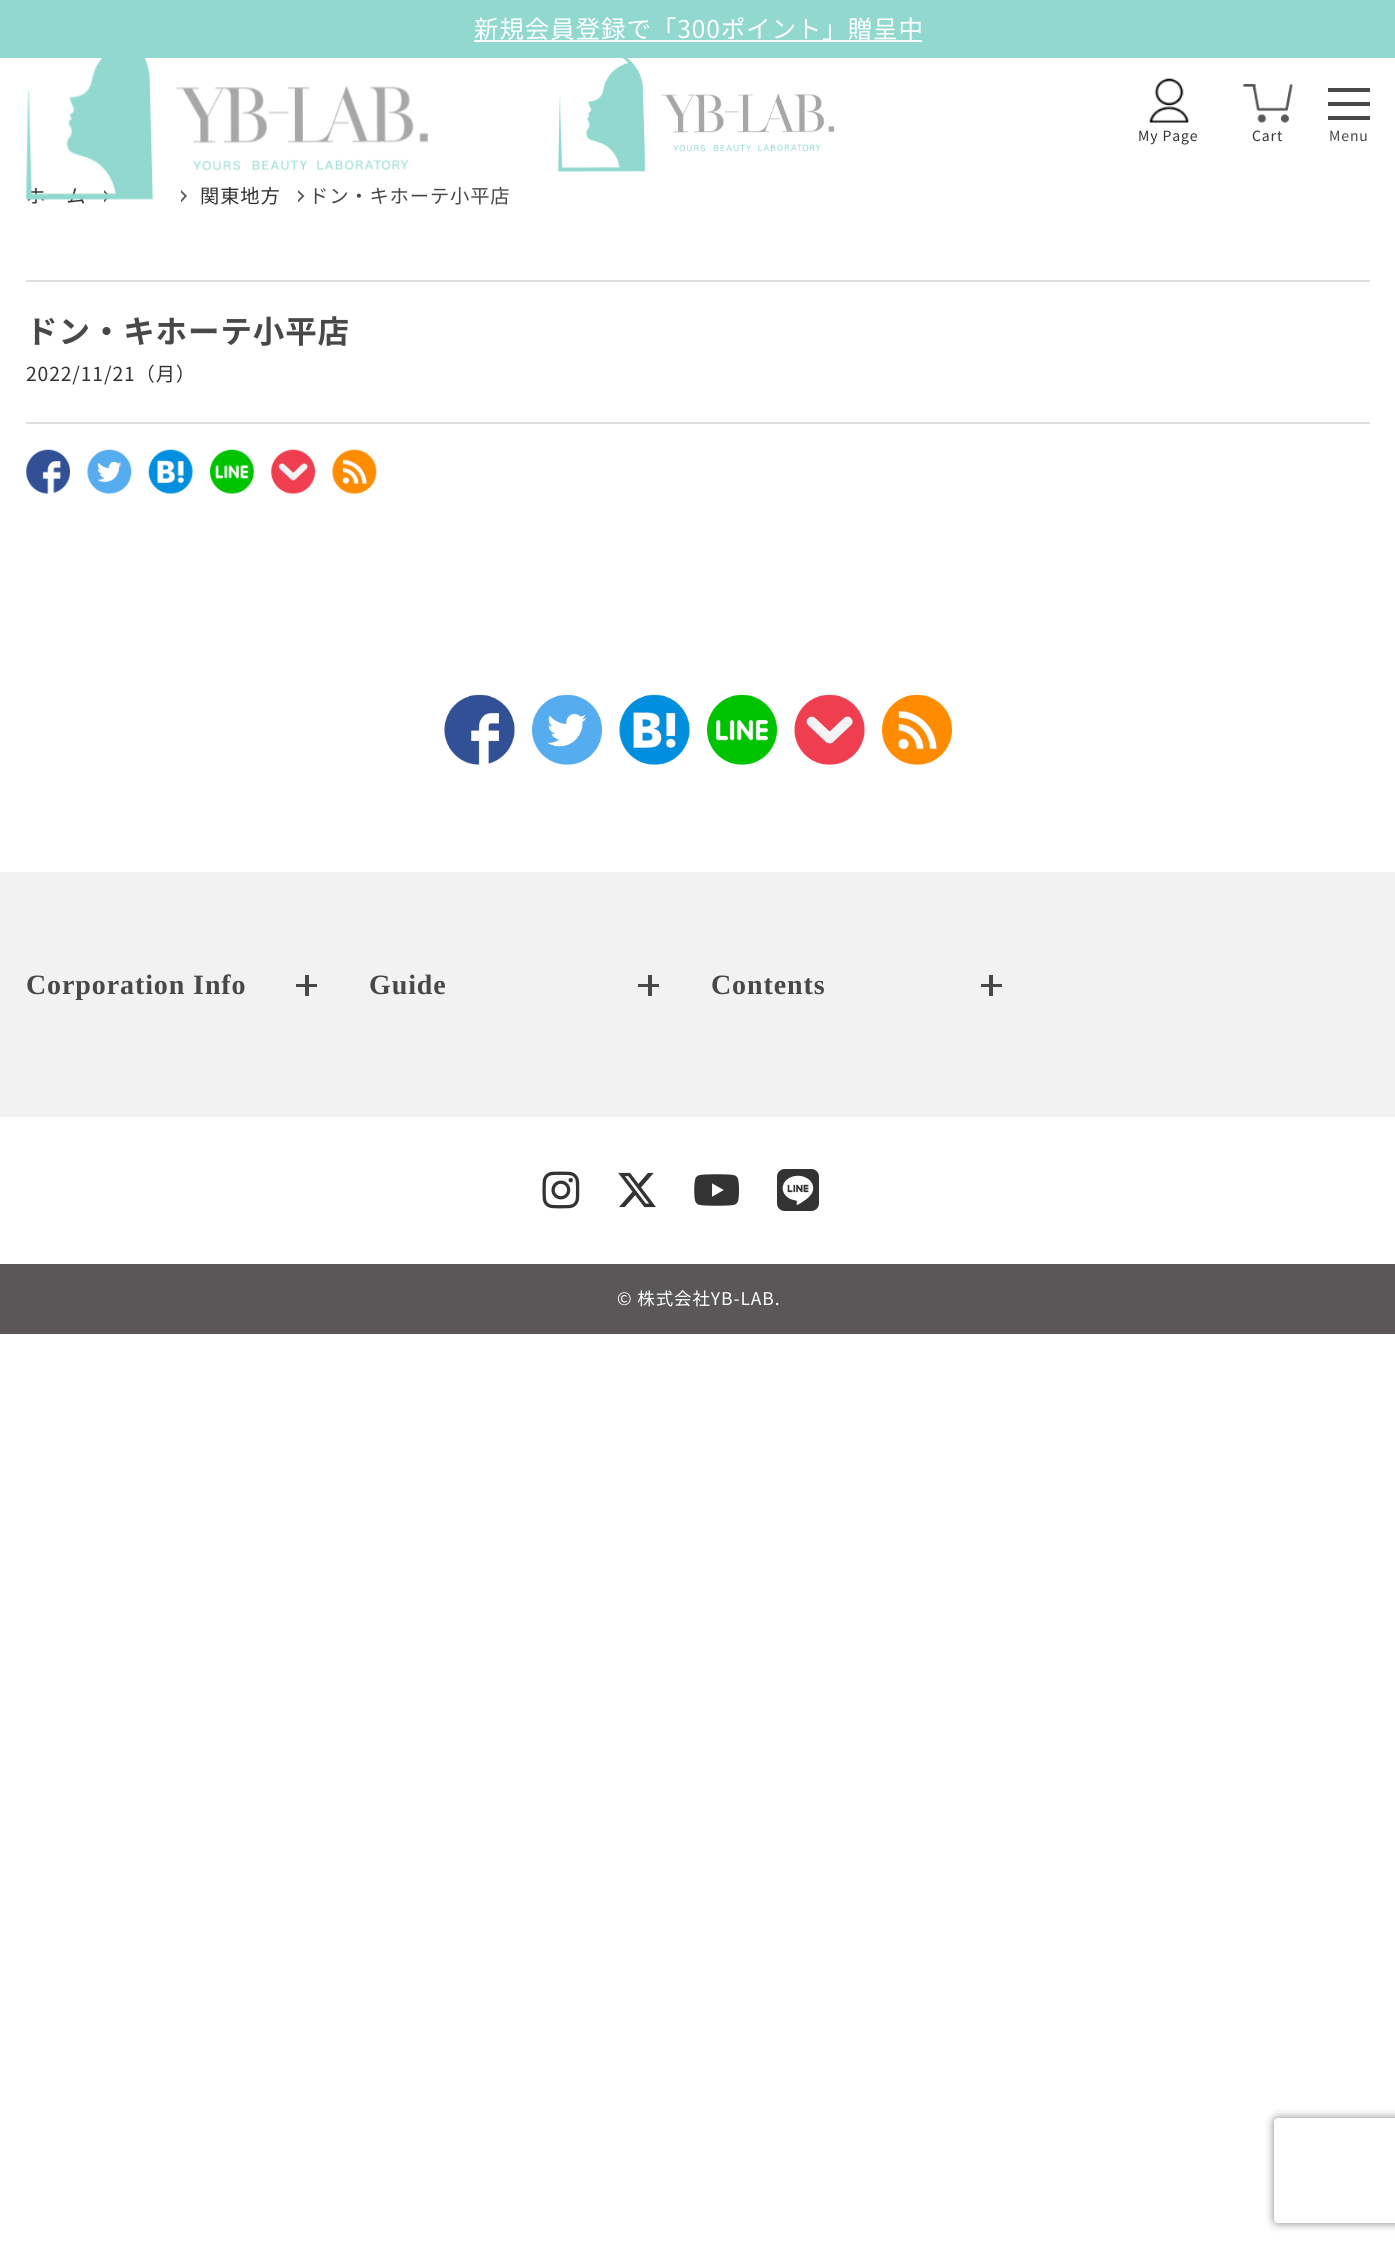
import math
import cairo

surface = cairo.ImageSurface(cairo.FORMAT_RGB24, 1395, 2247)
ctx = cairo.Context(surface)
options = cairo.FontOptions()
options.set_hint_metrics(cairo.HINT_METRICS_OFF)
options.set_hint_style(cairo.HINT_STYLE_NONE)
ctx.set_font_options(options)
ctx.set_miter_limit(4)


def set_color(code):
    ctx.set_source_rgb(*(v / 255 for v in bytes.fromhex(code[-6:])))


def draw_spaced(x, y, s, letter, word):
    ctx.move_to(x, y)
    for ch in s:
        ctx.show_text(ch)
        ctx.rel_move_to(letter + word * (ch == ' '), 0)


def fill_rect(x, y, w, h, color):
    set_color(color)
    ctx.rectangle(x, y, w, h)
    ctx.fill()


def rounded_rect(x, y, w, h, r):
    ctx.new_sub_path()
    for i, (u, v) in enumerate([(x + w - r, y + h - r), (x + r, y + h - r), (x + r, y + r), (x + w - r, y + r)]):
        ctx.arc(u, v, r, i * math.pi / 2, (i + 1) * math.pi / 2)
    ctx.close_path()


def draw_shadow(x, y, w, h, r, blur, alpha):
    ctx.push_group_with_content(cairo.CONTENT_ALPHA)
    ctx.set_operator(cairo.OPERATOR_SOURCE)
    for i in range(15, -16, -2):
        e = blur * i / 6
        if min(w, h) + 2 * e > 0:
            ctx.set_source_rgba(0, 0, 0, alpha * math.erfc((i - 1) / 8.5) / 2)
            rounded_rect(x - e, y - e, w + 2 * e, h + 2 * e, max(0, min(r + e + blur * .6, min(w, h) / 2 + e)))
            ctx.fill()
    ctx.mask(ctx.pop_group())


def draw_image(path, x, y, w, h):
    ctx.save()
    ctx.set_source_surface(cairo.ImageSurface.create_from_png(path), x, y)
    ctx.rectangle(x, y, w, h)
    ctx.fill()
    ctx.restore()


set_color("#ffffff")
ctx.paint()
fill_rect(0, 0, 1395, 58, "#91d9cf")
fill_rect(474, 40, 448, 2, "#ffffff")
ctx.select_font_face("Noto Sans JP")
ctx.set_font_size(24.5)
draw_spaced(474, 38, "新規会員登録で「300ポイント」贈呈中", 0.9, 0)
ctx.set_font_size(19.25)
set_color("#333333")
draw_spaced(26, 203, "ホーム", 0.9, 0)
set_color("#565656")
ctx.new_path()
ctx.move_to(104, 190)
ctx.line_to(110, 196)
ctx.line_to(107.5, 196)
ctx.line_to(104, 192.5)
ctx.close_path()
ctx.move_to(110, 196)
ctx.line_to(104, 202.5)
ctx.line_to(104, 200)
ctx.line_to(107.5, 196)
ctx.close_path()
ctx.fill()
ctx.new_path()
ctx.move_to(181, 190)
ctx.line_to(187, 196)
ctx.line_to(184.5, 196)
ctx.line_to(181, 192.5)
ctx.close_path()
ctx.move_to(187, 196)
ctx.line_to(181, 202.5)
ctx.line_to(181, 200)
ctx.line_to(184.5, 196)
ctx.close_path()
ctx.fill()
set_color("#333333")
draw_spaced(200, 203, "関東地方", 0.9, 0)
set_color("#565656")
ctx.new_path()
ctx.move_to(298, 190)
ctx.line_to(304.5, 196)
ctx.line_to(302, 196)
ctx.line_to(298, 192.5)
ctx.close_path()
ctx.move_to(304.5, 196)
ctx.line_to(298, 202.5)
ctx.line_to(298, 200)
ctx.line_to(302, 196)
ctx.close_path()
ctx.fill()
set_color("#484848")
draw_spaced(309, 203, "ドン・キホーテ小平店", 0.9, 0)
draw_image("assets/img1.png", 26, 58, 402, 142)
draw_image("assets/img2.png", 558, 58, 276, 114)
draw_image("assets/img3.png", 1149, 78, 40, 45)
ctx.set_font_size(14)
set_color("#333333")
draw_spaced(1138, 141, "My Page", 0.9, 0)
draw_image("assets/img4.png", 1242, 84, 51, 39)
draw_spaced(1252, 141, "Cart", 0.9, 0)
fill_rect(1328, 88, 42, 4, "#484848")
fill_rect(1328, 102, 42, 4, "#484848")
fill_rect(1328, 116, 42, 4, "#484848")
draw_spaced(1329, 141, "Menu", 0.9, 0)
fill_rect(26, 280, 1344, 2, "#dfdfdf")
fill_rect(26, 422, 1344, 2, "#dfdfdf")
ctx.select_font_face("Noto Sans JP", cairo.FONT_SLANT_NORMAL, cairo.FONT_WEIGHT_BOLD)
ctx.set_font_size(31.5)
set_color("#484848")
draw_spaced(26, 343, "ドン・キホーテ小平店", 0.9, 0)
ctx.select_font_face("Noto Sans JP")
ctx.set_font_size(19.25)
set_color("#333333")
draw_spaced(26, 381, "2022/11/21（月）", 0.9, 0)
draw_image("assets/img5.png", 26, 449, 44, 45)
draw_image("assets/img6.png", 87, 449, 45, 45)
draw_image("assets/img7.png", 148, 449, 45, 45)
draw_image("assets/img8.png", 210, 449, 44, 45)
draw_image("assets/img9.png", 271, 449, 44, 45)
draw_image("assets/img10.png", 332, 449, 45, 45)
draw_image("assets/img11.png", 444, 694, 71, 71)
draw_image("assets/img12.png", 532, 694, 70, 71)
draw_image("assets/img13.png", 619, 694, 71, 71)
draw_image("assets/img14.png", 707, 694, 70, 71)
draw_image("assets/img15.png", 794, 694, 71, 71)
draw_image("assets/img16.png", 882, 694, 70, 71)
fill_rect(0, 872, 1395, 245, "#f2f2f2")
ctx.select_font_face("Liberation Serif", cairo.FONT_SLANT_NORMAL, cairo.FONT_WEIGHT_BOLD)
ctx.set_font_size(28)
set_color("#484848")
draw_spaced(26, 994, "Corporation Info", 0.9, 0)
fill_rect(305, 975, 4, 21, "#484848")
fill_rect(296, 984, 21, 3, "#484848")
draw_spaced(369, 994, "Guide", 0.9, 0)
fill_rect(648, 975, 4, 21, "#484848")
fill_rect(638, 984, 21, 3, "#484848")
draw_spaced(711, 994, "Contents", 0.9, 0)
fill_rect(989, 975, 4, 21, "#484848")
fill_rect(981, 984, 21, 3, "#484848")
draw_image("assets/img17.png", 542, 1171, 38, 38)
draw_image("assets/img18.png", 618, 1172, 38, 36)
draw_image("assets/img19.png", 694, 1174, 45, 32)
draw_image("assets/img20.png", 777, 1169, 42, 42)
fill_rect(0, 1264, 1395, 70, "#595757")
ctx.select_font_face("Noto Sans JP")
ctx.set_font_size(17.5)
set_color("#ffffff")
draw_spaced(617, 1305, "© 株式会社YB-LAB.", 0.9, 0)
ctx.save()
ctx.set_fill_rule(cairo.FILL_RULE_EVEN_ODD)
ctx.new_path()
ctx.move_to(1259, 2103)
ctx.line_to(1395, 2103)
ctx.line_to(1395, 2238)
ctx.line_to(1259, 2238)
ctx.close_path()
ctx.move_to(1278, 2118)
ctx.line_to(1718, 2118)
ctx.curve_to(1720, 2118, 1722, 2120, 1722, 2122)
ctx.line_to(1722, 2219)
ctx.curve_to(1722, 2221, 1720, 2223, 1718, 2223)
ctx.line_to(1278, 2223)
ctx.curve_to(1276, 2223, 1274, 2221, 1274, 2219)
ctx.line_to(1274, 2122)
ctx.curve_to(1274, 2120, 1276, 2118, 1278, 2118)
ctx.close_path()
ctx.clip()
set_color("#808080")
draw_shadow(1274, 2118, 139, 105, 4, 4.5, 1)
ctx.restore()
surface.write_to_png("output.png")
